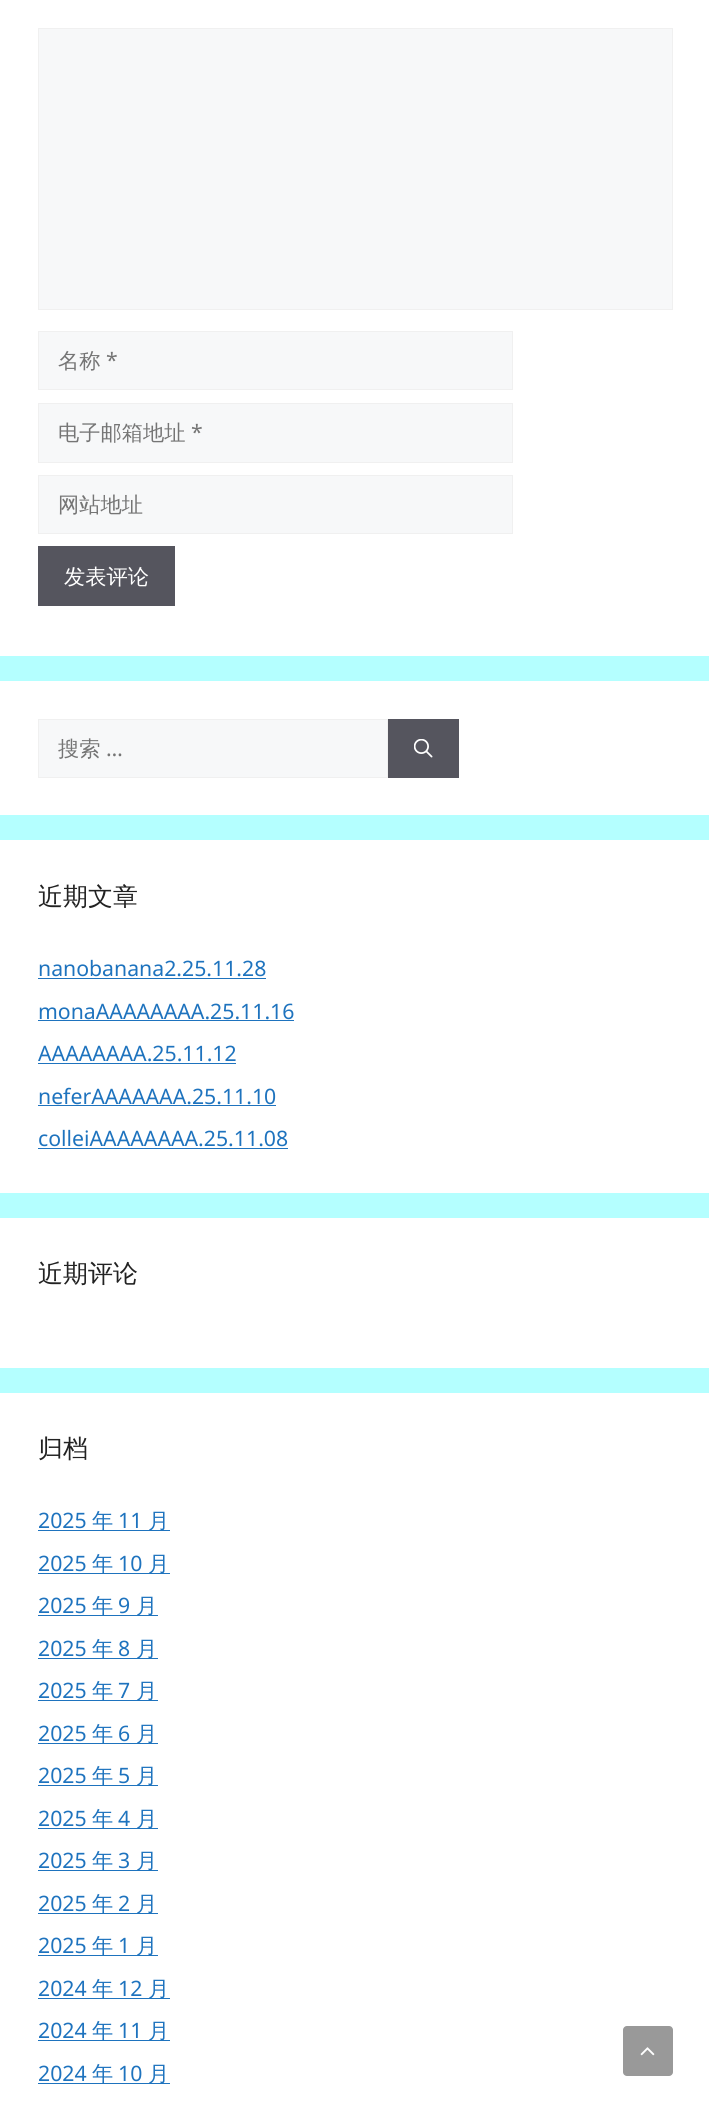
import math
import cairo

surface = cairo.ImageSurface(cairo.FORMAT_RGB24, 709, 2113)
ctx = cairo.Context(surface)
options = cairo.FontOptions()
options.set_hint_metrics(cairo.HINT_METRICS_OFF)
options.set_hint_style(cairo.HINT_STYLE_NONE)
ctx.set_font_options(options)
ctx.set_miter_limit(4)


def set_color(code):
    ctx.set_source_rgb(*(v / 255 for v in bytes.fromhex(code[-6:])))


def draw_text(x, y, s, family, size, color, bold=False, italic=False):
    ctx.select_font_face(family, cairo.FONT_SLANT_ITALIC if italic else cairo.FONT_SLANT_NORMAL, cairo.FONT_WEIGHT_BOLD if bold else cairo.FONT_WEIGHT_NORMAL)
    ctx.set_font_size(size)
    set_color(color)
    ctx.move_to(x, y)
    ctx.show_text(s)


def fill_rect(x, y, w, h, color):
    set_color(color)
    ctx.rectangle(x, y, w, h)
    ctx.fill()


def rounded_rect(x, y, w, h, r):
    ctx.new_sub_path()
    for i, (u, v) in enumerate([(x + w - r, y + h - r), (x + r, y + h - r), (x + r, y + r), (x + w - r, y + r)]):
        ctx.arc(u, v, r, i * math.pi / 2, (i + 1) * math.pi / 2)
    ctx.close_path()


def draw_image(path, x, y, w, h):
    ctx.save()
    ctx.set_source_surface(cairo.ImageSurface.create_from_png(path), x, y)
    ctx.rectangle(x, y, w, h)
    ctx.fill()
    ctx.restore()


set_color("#b4ffff")
ctx.paint()
fill_rect(0, 0, 709, 656, "#ffffff")
set_color("#f7f8f9")
ctx.rectangle(38.5, 28.5, 634, 281)
ctx.fill_preserve()
set_color("#f0f0f0")
ctx.set_line_width(1)
ctx.stroke()
set_color("#f7f8f9")
ctx.rectangle(38.5, 331.5, 474, 58)
ctx.fill_preserve()
set_color("#f0f0f0")
ctx.stroke()
draw_text(58, 368, "名称", "WenQuanYi Zen Hei Medium", 21.25, "#757575")
draw_text(106, 368, "*", "Noto Sans", 21.25, "#757575")
set_color("#f7f8f9")
ctx.rectangle(38.5, 403.5, 474, 59)
ctx.fill_preserve()
set_color("#f0f0f0")
ctx.stroke()
draw_text(58, 440, "电子邮箱地址", "WenQuanYi Zen Hei Medium", 21.25, "#757575")
draw_text(191, 440, "*", "Noto Sans", 21.25, "#757575")
set_color("#f7f8f9")
ctx.rectangle(38.5, 475.5, 474, 58)
ctx.fill_preserve()
set_color("#f0f0f0")
ctx.stroke()
draw_text(58, 512, "网站地址", "WenQuanYi Zen Hei Medium", 21.25, "#757575")
fill_rect(38, 546, 137, 60, "#55555e")
draw_text(64, 584, "发表评论", "WenQuanYi Zen Hei Medium", 21.25, "#ffffff")
fill_rect(0, 681, 709, 134, "#ffffff")
set_color("#f7f8f9")
ctx.rectangle(38.5, 719.5, 349, 58)
ctx.fill_preserve()
set_color("#f0f0f0")
ctx.stroke()
draw_text(58, 756, "搜索", "WenQuanYi Zen Hei Medium", 21.25, "#757575")
draw_text(106, 756, "…", "Noto Sans", 21.25, "#757575")
fill_rect(388, 719, 71, 59, "#55555e")
draw_image("assets/img1.png", 414, 739, 19, 19)
fill_rect(0, 840, 709, 353, "#ffffff")
draw_text(38, 905, "近期文章", "WenQuanYi Zen Hei Medium", 25, "#222222")
draw_text(38, 976, "nanobanana2.25.11.28", "Noto Sans", 21.25, "#1e73be")
fill_rect(38, 978, 228, 1, "#1e73be")
draw_text(38, 1019, "monaAAAAAAAA.25.11.16", "Noto Sans", 21.25, "#1e73be")
fill_rect(38, 1020, 256, 1, "#1e73be")
draw_text(38, 1061, "AAAAAAAA.25.11.12", "Noto Sans", 21.25, "#1e73be")
fill_rect(38, 1063, 198, 1, "#1e73be")
draw_text(38, 1104, "neferAAAAAAA.25.11.10", "Noto Sans", 21.25, "#1e73be")
fill_rect(38, 1105, 238, 1, "#1e73be")
draw_text(38, 1146, "colleiAAAAAAAA.25.11.08", "Noto Sans", 21.25, "#1e73be")
fill_rect(38, 1148, 250, 1, "#1e73be")
fill_rect(0, 1218, 709, 150, "#ffffff")
draw_text(38, 1282, "近期评论", "WenQuanYi Zen Hei Medium", 25, "#222222")
fill_rect(0, 1393, 709, 720, "#ffffff")
draw_text(38, 1457, "归档", "WenQuanYi Zen Hei Medium", 25, "#222222")
draw_text(38, 1528, "2025", "Noto Sans", 21.25, "#1e73be")
fill_rect(38, 1530, 132, 1, "#1e73be")
draw_text(92, 1528, "年", "WenQuanYi Zen Hei Medium", 21.25, "#1e73be")
draw_text(118, 1528, "11", "Noto Sans", 21.25, "#1e73be")
draw_text(148, 1528, "月", "WenQuanYi Zen Hei Medium", 21.25, "#1e73be")
draw_text(38, 1571, "2025", "Noto Sans", 21.25, "#1e73be")
fill_rect(38, 1573, 132, 1, "#1e73be")
draw_text(92, 1571, "年", "WenQuanYi Zen Hei Medium", 21.25, "#1e73be")
draw_text(118, 1571, "10", "Noto Sans", 21.25, "#1e73be")
draw_text(148, 1571, "月", "WenQuanYi Zen Hei Medium", 21.25, "#1e73be")
draw_text(38, 1613, "2025", "Noto Sans", 21.25, "#1e73be")
fill_rect(38, 1615, 120, 1, "#1e73be")
draw_text(92, 1613, "年", "WenQuanYi Zen Hei Medium", 21.25, "#1e73be")
draw_text(118, 1613, "9", "Noto Sans", 21.25, "#1e73be")
draw_text(136, 1613, "月", "WenQuanYi Zen Hei Medium", 21.25, "#1e73be")
draw_text(38, 1656, "2025", "Noto Sans", 21.25, "#1e73be")
fill_rect(38, 1658, 120, 1, "#1e73be")
draw_text(92, 1656, "年", "WenQuanYi Zen Hei Medium", 21.25, "#1e73be")
draw_text(118, 1656, "8", "Noto Sans", 21.25, "#1e73be")
draw_text(136, 1656, "月", "WenQuanYi Zen Hei Medium", 21.25, "#1e73be")
draw_text(38, 1698, "2025", "Noto Sans", 21.25, "#1e73be")
fill_rect(38, 1700, 120, 1, "#1e73be")
draw_text(92, 1698, "年", "WenQuanYi Zen Hei Medium", 21.25, "#1e73be")
draw_text(118, 1698, "7", "Noto Sans", 21.25, "#1e73be")
draw_text(136, 1698, "月", "WenQuanYi Zen Hei Medium", 21.25, "#1e73be")
draw_text(38, 1741, "2025", "Noto Sans", 21.25, "#1e73be")
fill_rect(38, 1743, 120, 1, "#1e73be")
draw_text(92, 1741, "年", "WenQuanYi Zen Hei Medium", 21.25, "#1e73be")
draw_text(118, 1741, "6", "Noto Sans", 21.25, "#1e73be")
draw_text(136, 1741, "月", "WenQuanYi Zen Hei Medium", 21.25, "#1e73be")
draw_text(38, 1783, "2025", "Noto Sans", 21.25, "#1e73be")
fill_rect(38, 1785, 120, 1, "#1e73be")
draw_text(92, 1783, "年", "WenQuanYi Zen Hei Medium", 21.25, "#1e73be")
draw_text(118, 1783, "5", "Noto Sans", 21.25, "#1e73be")
draw_text(136, 1783, "月", "WenQuanYi Zen Hei Medium", 21.25, "#1e73be")
draw_text(38, 1826, "2025", "Noto Sans", 21.25, "#1e73be")
fill_rect(38, 1828, 120, 1, "#1e73be")
draw_text(92, 1826, "年", "WenQuanYi Zen Hei Medium", 21.25, "#1e73be")
draw_text(118, 1826, "4", "Noto Sans", 21.25, "#1e73be")
draw_text(136, 1826, "月", "WenQuanYi Zen Hei Medium", 21.25, "#1e73be")
draw_text(38, 1868, "2025", "Noto Sans", 21.25, "#1e73be")
fill_rect(38, 1870, 120, 1, "#1e73be")
draw_text(92, 1868, "年", "WenQuanYi Zen Hei Medium", 21.25, "#1e73be")
draw_text(118, 1868, "3", "Noto Sans", 21.25, "#1e73be")
draw_text(136, 1868, "月", "WenQuanYi Zen Hei Medium", 21.25, "#1e73be")
draw_text(38, 1911, "2025", "Noto Sans", 21.25, "#1e73be")
fill_rect(38, 1913, 120, 1, "#1e73be")
draw_text(92, 1911, "年", "WenQuanYi Zen Hei Medium", 21.25, "#1e73be")
draw_text(118, 1911, "2", "Noto Sans", 21.25, "#1e73be")
draw_text(136, 1911, "月", "WenQuanYi Zen Hei Medium", 21.25, "#1e73be")
draw_text(38, 1953, "2025", "Noto Sans", 21.25, "#1e73be")
fill_rect(38, 1955, 120, 1, "#1e73be")
draw_text(92, 1953, "年", "WenQuanYi Zen Hei Medium", 21.25, "#1e73be")
draw_text(118, 1953, "1", "Noto Sans", 21.25, "#1e73be")
draw_text(136, 1953, "月", "WenQuanYi Zen Hei Medium", 21.25, "#1e73be")
draw_text(38, 1996, "2024", "Noto Sans", 21.25, "#1e73be")
fill_rect(38, 1998, 132, 1, "#1e73be")
draw_text(92, 1996, "年", "WenQuanYi Zen Hei Medium", 21.25, "#1e73be")
draw_text(118, 1996, "12", "Noto Sans", 21.25, "#1e73be")
draw_text(148, 1996, "月", "WenQuanYi Zen Hei Medium", 21.25, "#1e73be")
draw_text(38, 2038, "2024", "Noto Sans", 21.25, "#1e73be")
fill_rect(38, 2040, 132, 1, "#1e73be")
draw_text(92, 2038, "年", "WenQuanYi Zen Hei Medium", 21.25, "#1e73be")
draw_text(118, 2038, "11", "Noto Sans", 21.25, "#1e73be")
draw_text(148, 2038, "月", "WenQuanYi Zen Hei Medium", 21.25, "#1e73be")
draw_text(38, 2081, "2024", "Noto Sans", 21.25, "#1e73be")
fill_rect(38, 2083, 132, 1, "#1e73be")
draw_text(92, 2081, "年", "WenQuanYi Zen Hei Medium", 21.25, "#1e73be")
draw_text(118, 2081, "10", "Noto Sans", 21.25, "#1e73be")
draw_text(148, 2081, "月", "WenQuanYi Zen Hei Medium", 21.25, "#1e73be")
set_color("#999999")
rounded_rect(623, 2026, 50, 50, 4)
ctx.fill()
draw_image("assets/img2.png", 640, 2047, 15, 9)
surface.write_to_png("output.png")
